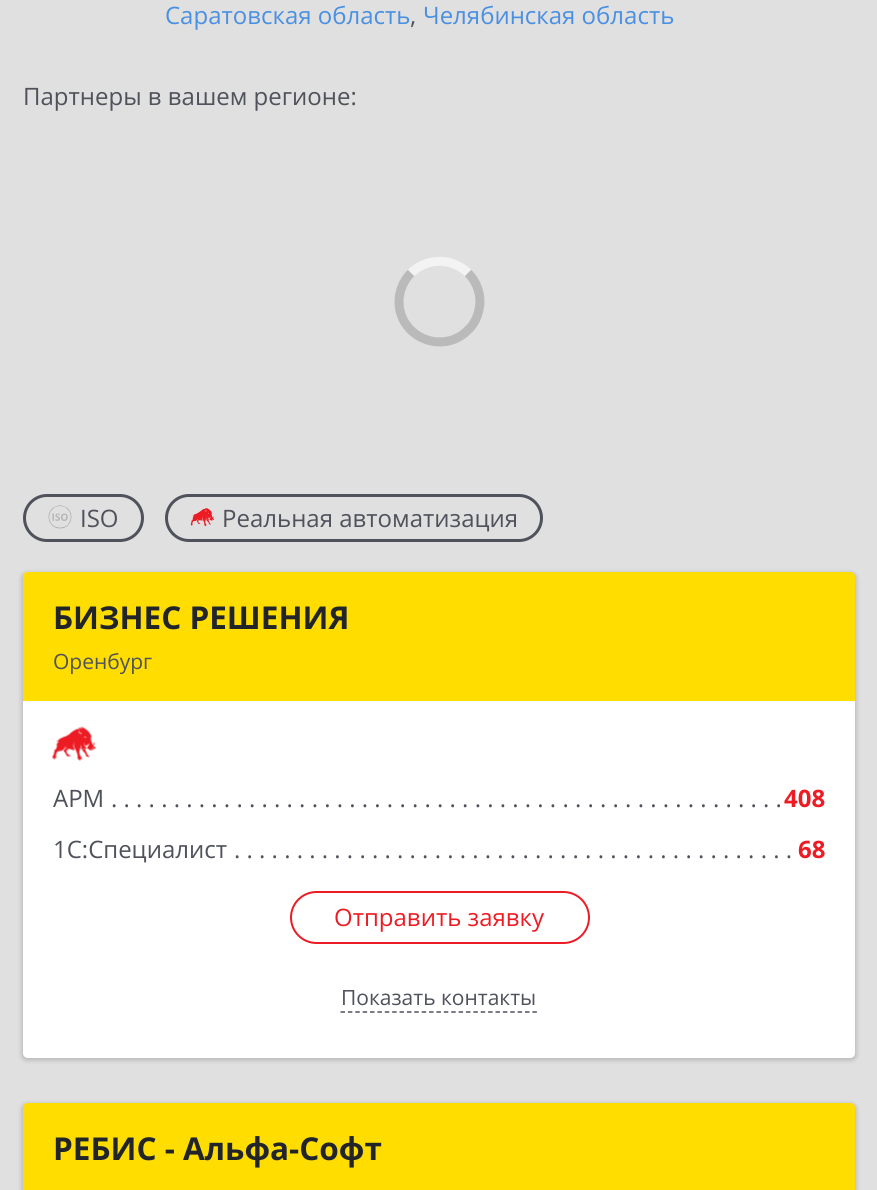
import math
import cairo

surface = cairo.ImageSurface(cairo.FORMAT_RGB24, 877, 1190)
ctx = cairo.Context(surface)
options = cairo.FontOptions()
options.set_hint_metrics(cairo.HINT_METRICS_OFF)
options.set_hint_style(cairo.HINT_STYLE_NONE)
ctx.set_font_options(options)
ctx.set_miter_limit(4)


def set_color(code):
    ctx.set_source_rgb(*(v / 255 for v in bytes.fromhex(code[-6:])))


def draw_text(x, y, s, family, size, color, bold=False, italic=False):
    ctx.select_font_face(family, cairo.FONT_SLANT_ITALIC if italic else cairo.FONT_SLANT_NORMAL, cairo.FONT_WEIGHT_BOLD if bold else cairo.FONT_WEIGHT_NORMAL)
    ctx.set_font_size(size)
    set_color(color)
    ctx.move_to(x, y)
    ctx.show_text(s)


def rounded_rect(x, y, w, h, r):
    ctx.new_sub_path()
    for i, (u, v) in enumerate([(x + w - r, y + h - r), (x + r, y + h - r), (x + r, y + r), (x + w - r, y + r)]):
        ctx.arc(u, v, r, i * math.pi / 2, (i + 1) * math.pi / 2)
    ctx.close_path()


def draw_shadow(x, y, w, h, r, blur, alpha):
    ctx.push_group_with_content(cairo.CONTENT_ALPHA)
    ctx.set_operator(cairo.OPERATOR_SOURCE)
    for i in range(15, -16, -2):
        e = blur * i / 6
        if min(w, h) + 2 * e > 0:
            ctx.set_source_rgba(0, 0, 0, alpha * math.erfc((i - 1) / 8.5) / 2)
            rounded_rect(x - e, y - e, w + 2 * e, h + 2 * e, max(0, min(r + e + blur * .6, min(w, h) / 2 + e)))
            ctx.fill()
    ctx.mask(ctx.pop_group())


def draw_image(path, x, y, w, h):
    ctx.save()
    ctx.set_source_surface(cairo.ImageSurface.create_from_png(path), x, y)
    ctx.rectangle(x, y, w, h)
    ctx.fill()
    ctx.restore()


set_color("#e0e0e0")
ctx.paint()
draw_text(165, 24, "Саратовская область", "Open Sans", 24, "#4a90e2")
draw_text(410, 24, ",", "Open Sans", 24, "#50525b")
draw_text(423, 24, "Челябинская область", "Open Sans", 24, "#4a90e2")
draw_text(23, 105, "Партнеры в вашем регионе:", "Open Sans", 24, "#50525b")
ctx.new_path()
ctx.move_to(411, 273)
ctx.curve_to(426.5, 257.5, 452.5, 257.5, 468, 273)
set_color("#f3f3f3")
ctx.set_line_width(9)
ctx.stroke()
ctx.new_path()
ctx.move_to(468, 273)
ctx.curve_to(477.5, 282.5, 482, 296.5, 479, 309.5)
ctx.curve_to(477.5, 317, 474, 324.5, 468, 330)
ctx.curve_to(443, 355.5, 399, 337.5, 399, 301.5)
ctx.curve_to(399, 291, 403.5, 280.5, 411, 273)
ctx.set_source_rgba(0.584, 0.584, 0.584, 0.5)
ctx.stroke()
rounded_rect(24.5, 495.5, 118, 45, 22.5)
set_color("#50525b")
ctx.set_line_width(3)
ctx.stroke()
draw_image("assets/img1.png", 48, 505, 24, 24)
draw_text(80, 527, "ISO", "Open Sans", 24, "#50525b")
rounded_rect(166.5, 495.5, 375, 45, 22.5)
ctx.stroke()
draw_image("assets/img2.png", 190, 508, 25, 19)
draw_text(222, 527, "Реальная автоматизация", "Open Sans", 24, "#50525b")
set_color("#000000")
draw_shadow(21, 572, 836, 489, 6, 2, 0.15)
set_color("#ffdd00")
ctx.new_path()
ctx.move_to(28, 572)
ctx.line_to(850, 572)
ctx.curve_to(853, 572, 855, 574, 855, 577)
ctx.line_to(855, 701)
ctx.line_to(23, 701)
ctx.line_to(23, 577)
ctx.curve_to(23, 574, 25, 572, 28, 572)
ctx.close_path()
ctx.fill()
draw_text(53, 629, "БИЗНЕС РЕШЕНИЯ", "Open Sans", 31.5, "#212529", bold=True)
draw_text(53, 669, "Оренбург", "Open Sans", 21, "#50525b")
set_color("#ffffff")
ctx.new_path()
ctx.move_to(23, 701)
ctx.line_to(855, 701)
ctx.line_to(855, 1053)
ctx.curve_to(855, 1056, 853, 1058, 850, 1058)
ctx.line_to(28, 1058)
ctx.curve_to(25, 1058, 23, 1056, 23, 1053)
ctx.close_path()
ctx.fill()
draw_image("assets/img3.png", 52, 726, 44, 35)
draw_text(53, 807, "АРМ", "Open Sans", 24, "#50525b")
draw_text(111, 807, ". . . . . . . . . . . . . . . . . . . . . . . . . . . . . . . . . . . . . . . . . . . . . . . . . . . . . .", "Open Sans", 24, "#50525b")
draw_text(784, 807, "408", "Open Sans", 24, "#ed1c24", bold=True)
draw_text(53, 858, "1С:Специалист", "Open Sans", 24, "#50525b")
draw_text(234, 858, ". . . . . . . . . . . . . . . . . . . . . . . . . . . . . . . . . . . . . . . . . . . . .", "Open Sans", 24, "#50525b")
draw_text(798, 858, "68", "Open Sans", 24, "#ed1c24", bold=True)
rounded_rect(291, 892, 298, 51, 25.5)
ctx.set_line_width(2)
ctx.stroke()
draw_text(334, 926, "Отправить заявку", "Open Sans", 24, "#ed1c24")
ctx.new_path()
ctx.move_to(340.5, 1012)
ctx.line_to(537, 1012)
set_color("#50525b")
ctx.set_line_width(1.5)
ctx.set_dash([4.5, 2.88])
ctx.stroke()
draw_text(341, 1005, "Показать контакты", "Open Sans", 21, "#50525b")
set_color("#000000")
draw_shadow(21, 1103, 836, 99, 6, 2, 0.15)
set_color("#ffdd00")
ctx.new_path()
ctx.move_to(28, 1103)
ctx.line_to(850, 1103)
ctx.curve_to(853, 1103, 855, 1105, 855, 1108)
ctx.line_to(855, 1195)
ctx.line_to(23, 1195)
ctx.line_to(23, 1108)
ctx.curve_to(23, 1105, 25, 1103, 28, 1103)
ctx.close_path()
ctx.fill()
draw_text(53, 1160, "РЕБИС - Альфа-Софт", "Open Sans", 31.5, "#212529", bold=True)
surface.write_to_png("output.png")
